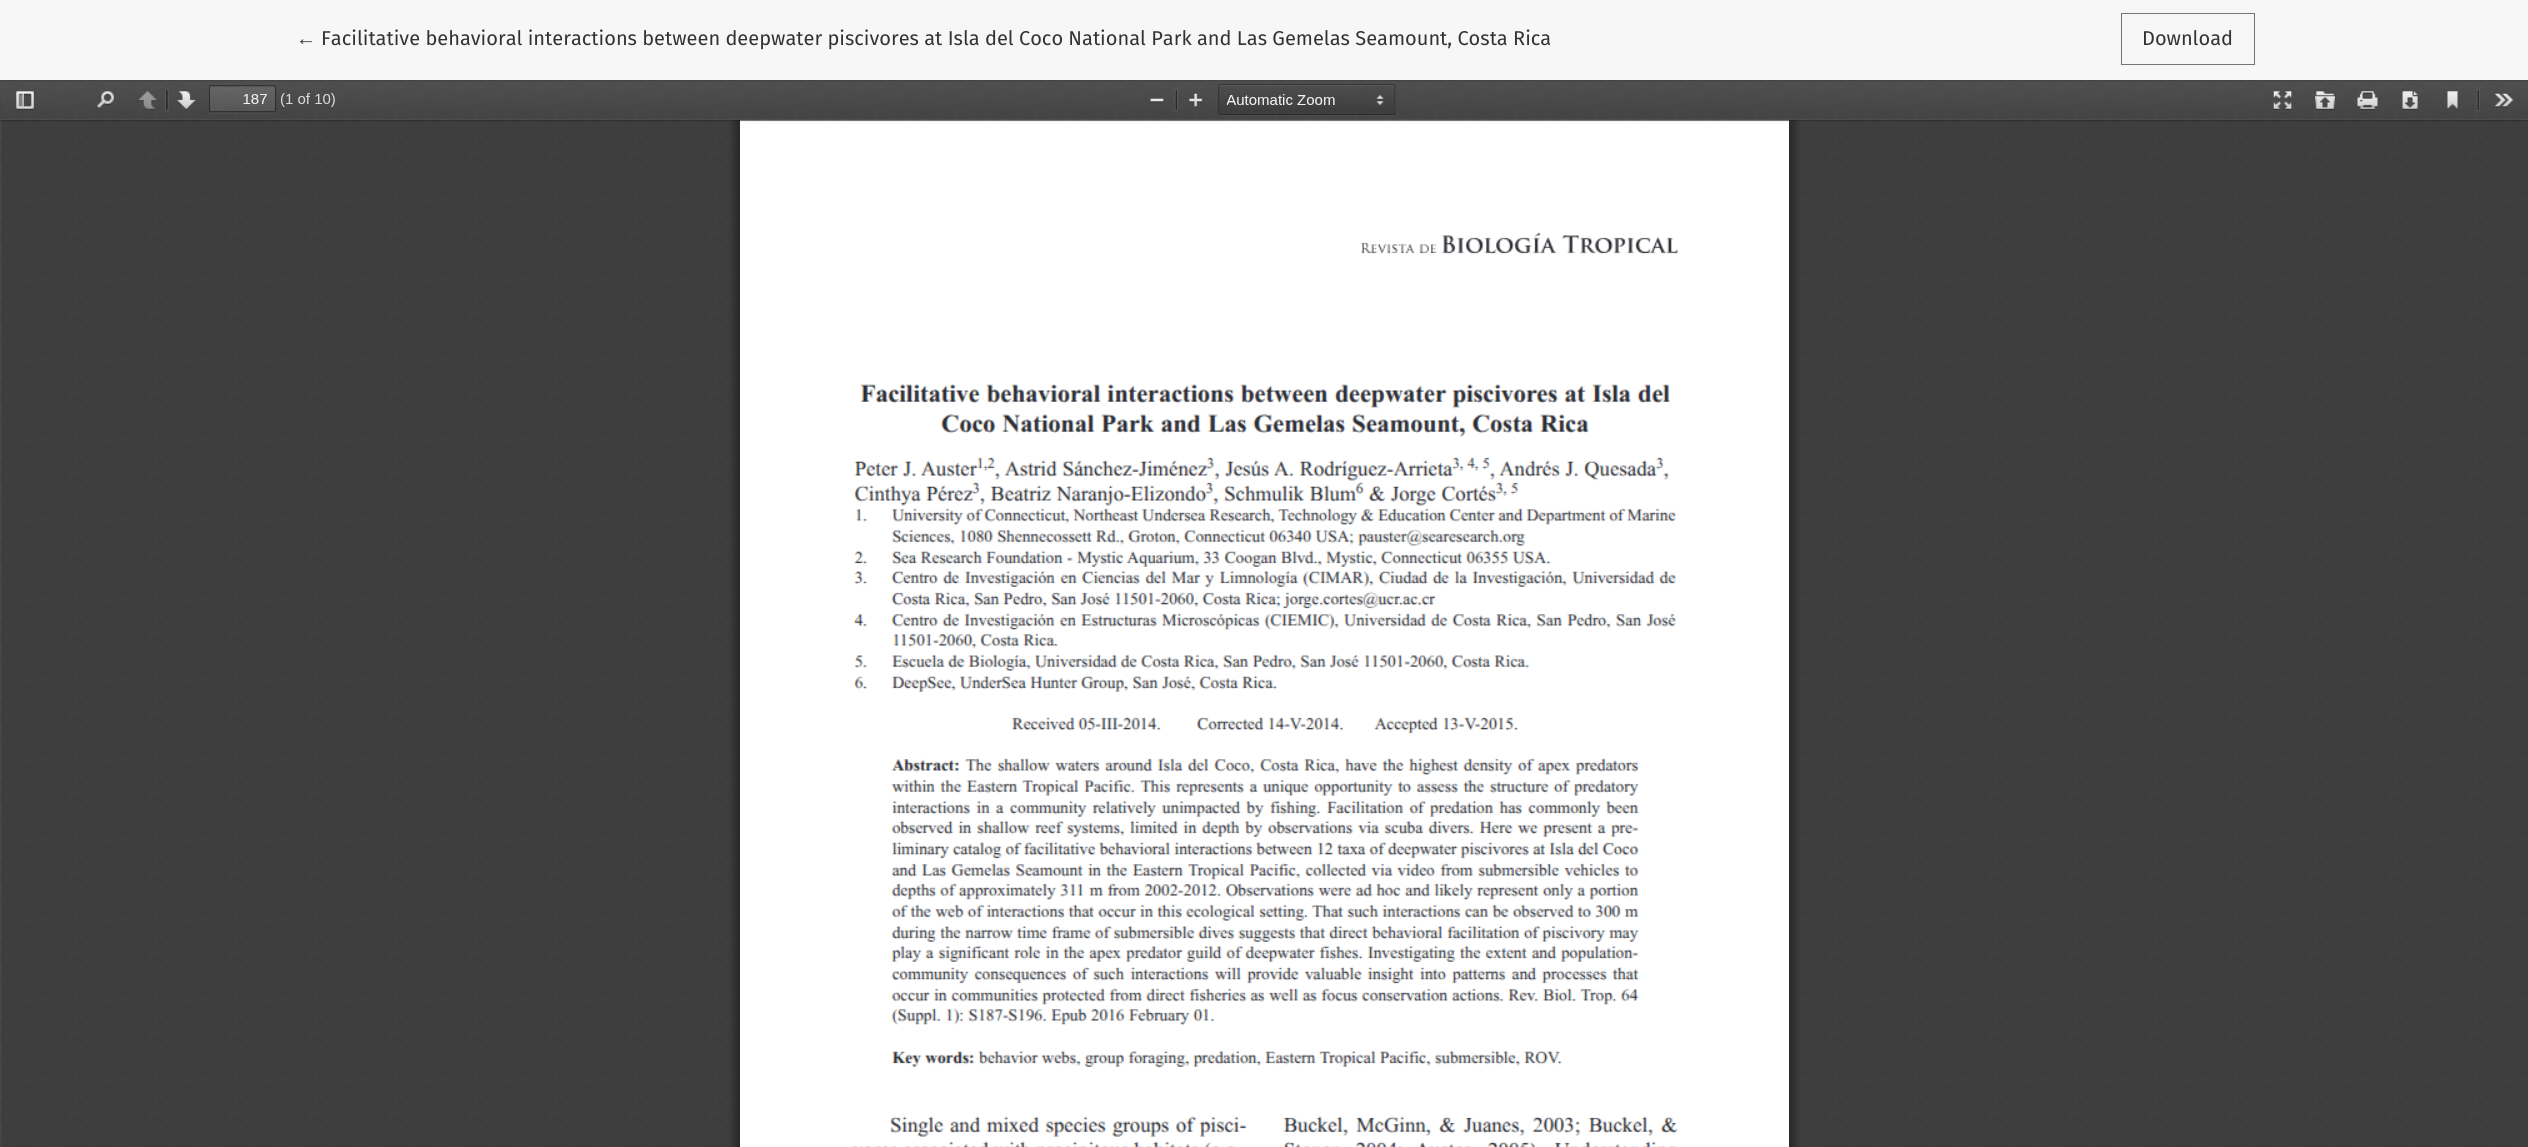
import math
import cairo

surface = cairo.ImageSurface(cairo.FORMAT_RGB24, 2528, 1147)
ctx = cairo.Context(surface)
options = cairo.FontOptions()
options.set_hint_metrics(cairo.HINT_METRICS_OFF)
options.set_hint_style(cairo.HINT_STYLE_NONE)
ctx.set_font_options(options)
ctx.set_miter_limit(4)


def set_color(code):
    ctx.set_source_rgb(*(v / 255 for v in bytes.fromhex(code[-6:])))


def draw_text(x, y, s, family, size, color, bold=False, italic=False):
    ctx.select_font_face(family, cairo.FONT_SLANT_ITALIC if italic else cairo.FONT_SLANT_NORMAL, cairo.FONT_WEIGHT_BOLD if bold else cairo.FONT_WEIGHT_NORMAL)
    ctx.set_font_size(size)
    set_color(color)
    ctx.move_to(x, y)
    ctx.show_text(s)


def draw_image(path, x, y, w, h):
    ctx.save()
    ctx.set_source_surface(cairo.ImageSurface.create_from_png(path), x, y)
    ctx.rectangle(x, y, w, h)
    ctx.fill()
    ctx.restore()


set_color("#f7f7f7")
ctx.paint()
draw_text(296, 45, "←", "Liberation Sans", 20, "#333333")
draw_text(321, 45, "Facilitative behavioral interactions between deepwater piscivores at Isla del Coco National Park and Las Gemelas Seamount, Costa Rica", "Fira Sans", 20, "#333333")
ctx.rectangle(2121.5, 13.5, 133, 51)
set_color("#757575")
ctx.set_line_width(1)
ctx.stroke()
draw_text(2142, 45, "Download", "Fira Sans", 20, "#333333")
draw_image("assets/img1.png", 0, 80, 2528, 1067)
surface.write_to_png("output.png")
